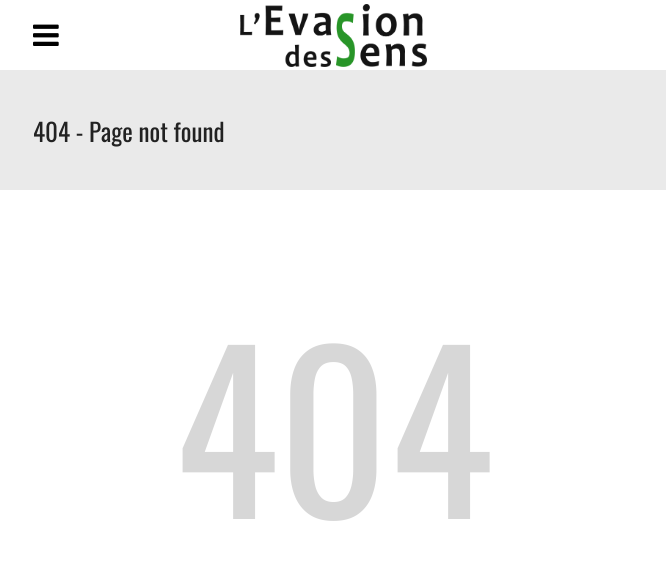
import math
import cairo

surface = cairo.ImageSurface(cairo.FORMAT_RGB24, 666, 573)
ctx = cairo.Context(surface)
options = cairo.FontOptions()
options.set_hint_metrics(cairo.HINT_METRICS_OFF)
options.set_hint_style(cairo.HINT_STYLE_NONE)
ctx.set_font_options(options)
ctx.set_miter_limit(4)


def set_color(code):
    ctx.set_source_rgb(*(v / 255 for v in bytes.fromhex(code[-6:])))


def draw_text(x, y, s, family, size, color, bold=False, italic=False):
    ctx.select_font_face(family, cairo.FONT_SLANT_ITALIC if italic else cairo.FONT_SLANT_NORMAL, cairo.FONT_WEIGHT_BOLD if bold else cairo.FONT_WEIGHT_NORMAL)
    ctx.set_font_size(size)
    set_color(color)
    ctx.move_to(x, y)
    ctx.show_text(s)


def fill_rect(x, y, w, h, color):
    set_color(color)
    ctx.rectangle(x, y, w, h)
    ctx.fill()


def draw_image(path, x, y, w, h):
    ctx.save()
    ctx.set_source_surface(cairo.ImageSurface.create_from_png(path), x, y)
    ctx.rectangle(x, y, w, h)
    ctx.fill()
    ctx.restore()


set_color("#ffffff")
ctx.paint()
draw_image("assets/img1.png", 33, 24, 26, 22)
draw_image("assets/img2.png", 240, 4, 187, 63)
fill_rect(0, 70, 666, 120, "#eaeaea")
draw_text(33, 142, "404 - Page not found", "Oswald", 25, "#222222")
draw_text(174, 519, "404", "Oswald", 215, "#d7d7d7")
surface.write_to_png("output.png")
